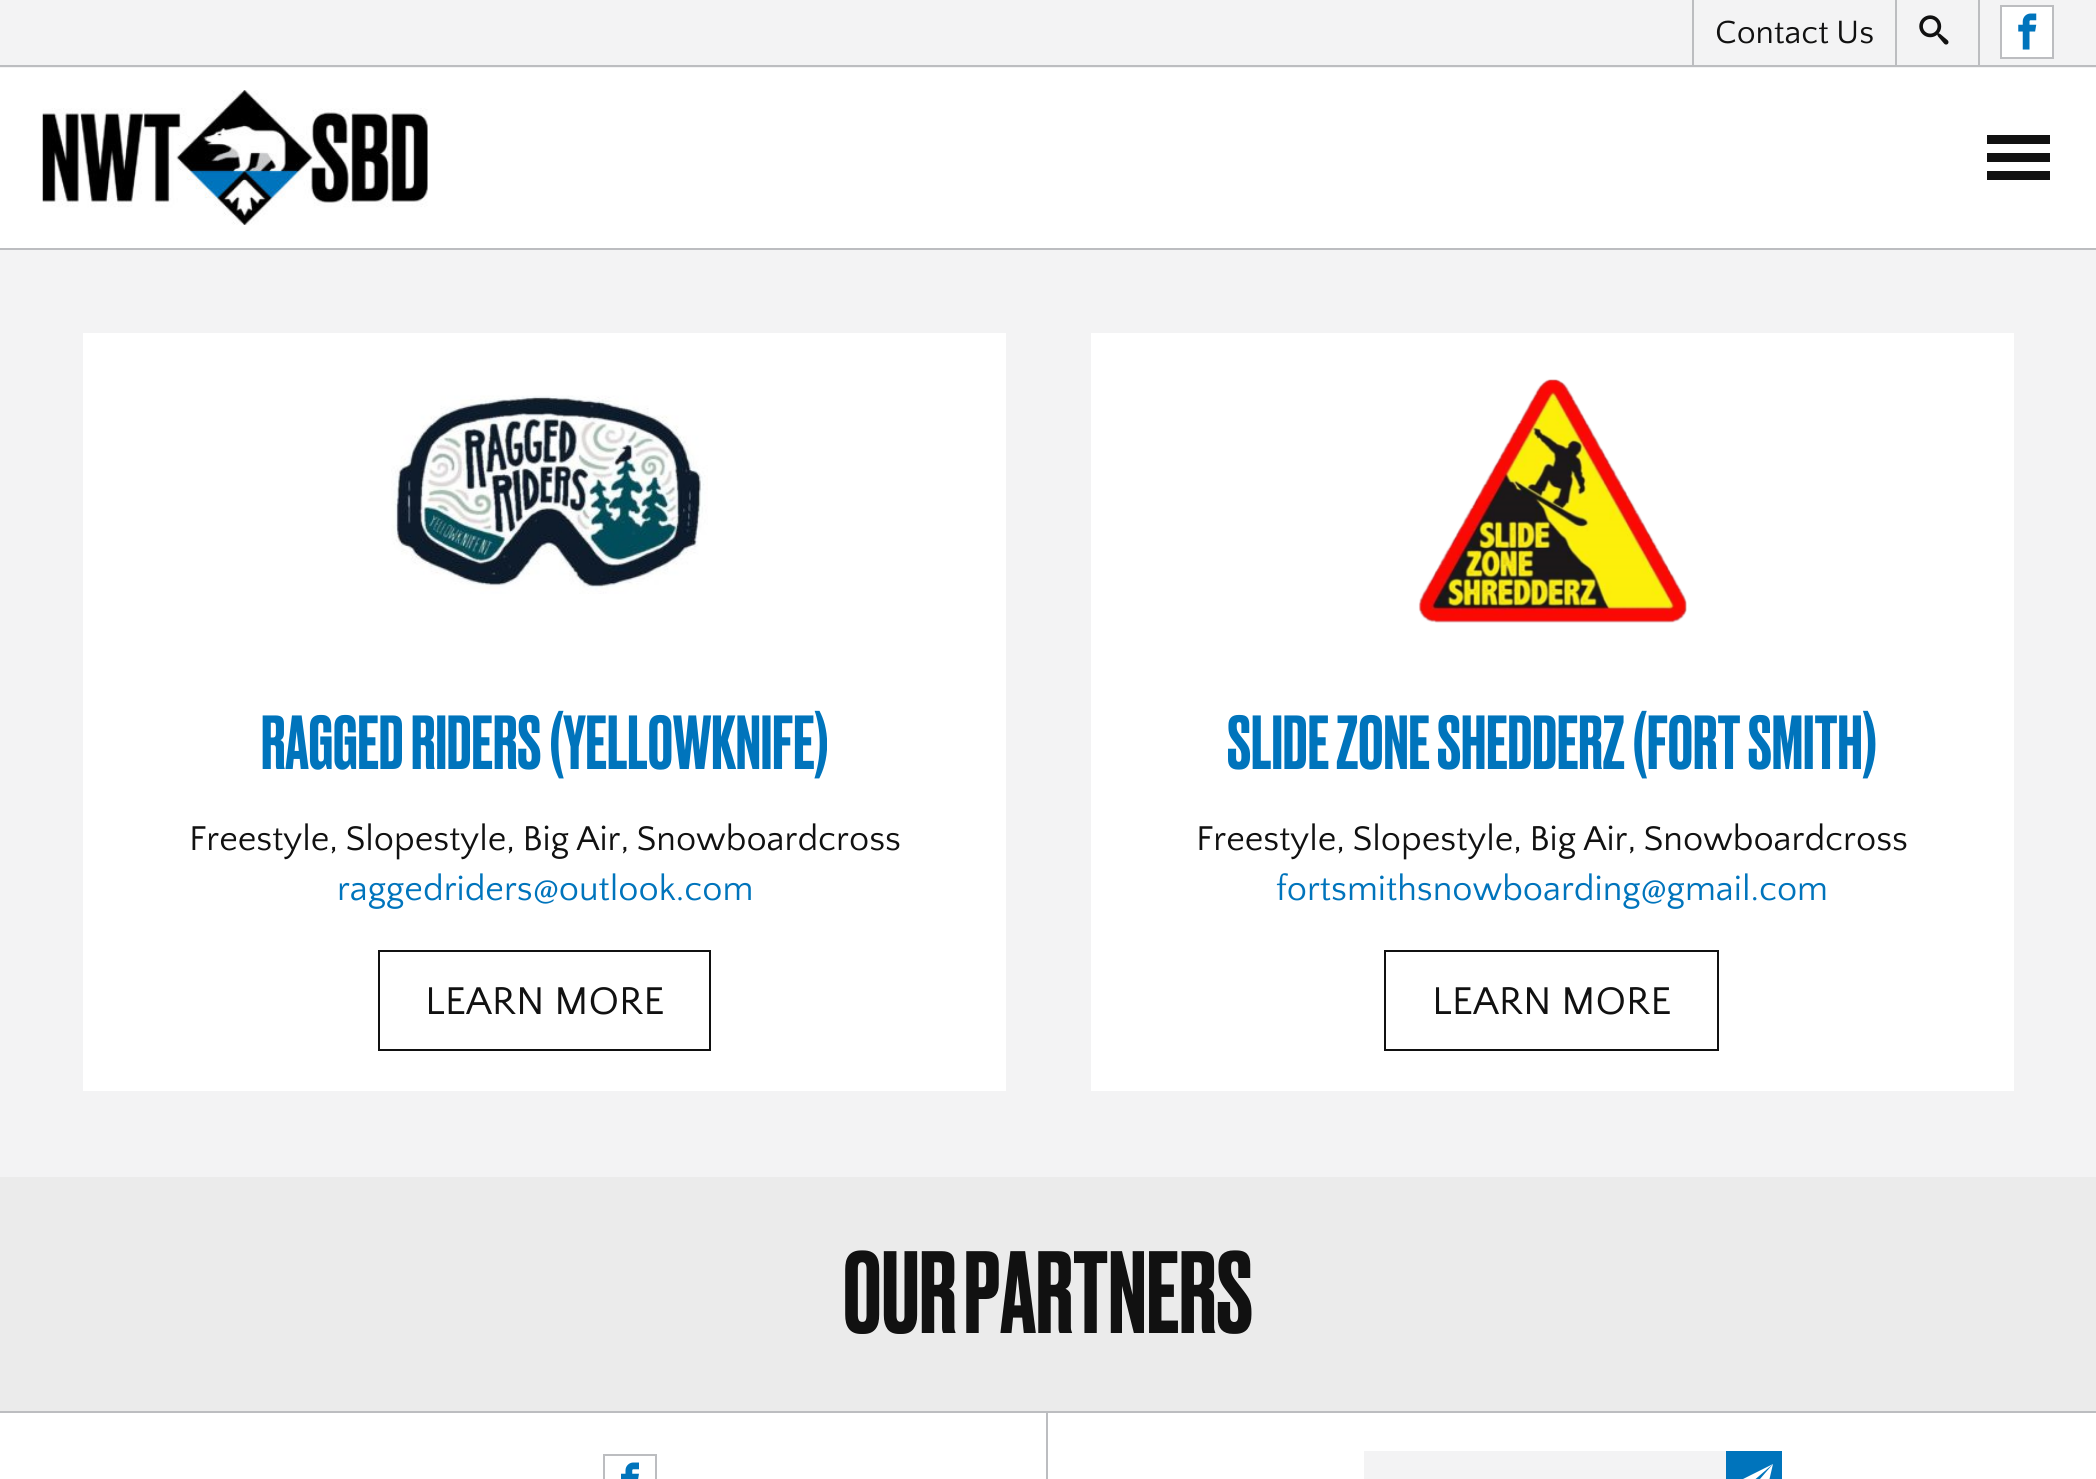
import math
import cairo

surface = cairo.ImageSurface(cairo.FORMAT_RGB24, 2096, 1479)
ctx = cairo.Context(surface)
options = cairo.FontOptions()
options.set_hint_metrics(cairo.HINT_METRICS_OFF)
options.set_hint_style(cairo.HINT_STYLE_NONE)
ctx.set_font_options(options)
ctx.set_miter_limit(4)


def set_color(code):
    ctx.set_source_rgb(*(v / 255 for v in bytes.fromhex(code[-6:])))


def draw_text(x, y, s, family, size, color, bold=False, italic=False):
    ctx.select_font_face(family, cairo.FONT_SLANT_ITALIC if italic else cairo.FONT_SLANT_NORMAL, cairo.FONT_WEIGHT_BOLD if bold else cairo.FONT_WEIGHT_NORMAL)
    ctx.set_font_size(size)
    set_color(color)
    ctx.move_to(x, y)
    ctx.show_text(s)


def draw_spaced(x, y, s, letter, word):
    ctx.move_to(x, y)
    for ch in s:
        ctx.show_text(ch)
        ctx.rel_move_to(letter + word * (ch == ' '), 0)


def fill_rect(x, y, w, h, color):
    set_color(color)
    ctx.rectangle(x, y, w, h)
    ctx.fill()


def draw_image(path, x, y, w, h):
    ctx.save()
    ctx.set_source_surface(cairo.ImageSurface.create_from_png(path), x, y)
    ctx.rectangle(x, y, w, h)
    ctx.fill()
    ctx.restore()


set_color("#ffffff")
ctx.paint()
fill_rect(0, 0, 2096, 68, "#f3f3f4")
fill_rect(0, 65, 2096, 2, "#bcbdc0")
fill_rect(1895, 0, 2, 65, "#bcbdc0")
fill_rect(1692, 0, 2, 65, "#bcbdc0")
ctx.select_font_face("Quattrocento Sans")
ctx.set_font_size(33.75)
set_color("#111111")
draw_spaced(1715, 43, "Contact Us", 0, -1)
draw_image("assets/img1.png", 1919, 15, 30, 30)
fill_rect(1978, 0, 2, 65, "#bcbdc0")
set_color("#ffffff")
ctx.rectangle(2001, 6, 52, 52)
ctx.fill_preserve()
set_color("#bcbdc0")
ctx.stroke()
draw_image("assets/img2.png", 2018, 13, 19, 37)
draw_image("assets/img3.png", 42, 90, 386, 135)
set_color("#111111")
ctx.new_path()
ctx.move_to(1987, 135)
ctx.line_to(2050, 135)
ctx.line_to(2050, 144)
ctx.line_to(1987, 144)
ctx.close_path()
ctx.move_to(1987, 153)
ctx.line_to(2050, 153)
ctx.line_to(2050, 162)
ctx.line_to(1987, 162)
ctx.close_path()
ctx.move_to(1987, 171)
ctx.line_to(2050, 171)
ctx.line_to(2050, 180)
ctx.line_to(1987, 180)
ctx.close_path()
ctx.fill()
fill_rect(0, 248, 2096, 2, "#bcbdc0")
fill_rect(0, 250, 2096, 927, "#f3f3f4")
fill_rect(83, 333, 923, 758, "#ffffff")
draw_image("assets/img4.png", 391, 395, 317, 199)
draw_text(261, 769, "RAGGED RIDERS (YELLOWKNIFE)", "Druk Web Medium", 72, "#0074bc")
ctx.select_font_face("Quattrocento Sans")
ctx.set_font_size(36)
set_color("#111111")
draw_spaced(189, 850, "Freestyle, Slopestyle, Big Air, Snowboardcross", 0, -1.5)
draw_text(337, 900, "raggedriders@outlook.com", "Quattrocento Sans", 36, "#0074bc")
ctx.rectangle(379, 951, 331, 99)
set_color("#111111")
ctx.stroke()
draw_text(425, 1014, "LEARN MORE", "Quattrocento Sans", 40.5, "#111111")
fill_rect(1091, 333, 923, 758, "#ffffff")
draw_image("assets/img5.png", 1418, 379, 269, 244)
draw_text(1227, 769, "SLIDE ZONE SHEDDERZ (FORT SMITH)", "Druk Web Medium", 72, "#0074bc")
ctx.select_font_face("Quattrocento Sans")
ctx.set_font_size(36)
set_color("#111111")
draw_spaced(1196, 850, "Freestyle, Slopestyle, Big Air, Snowboardcross", 0, -1.5)
draw_text(1276, 900, "fortsmithsnowboarding@gmail.com", "Quattrocento Sans", 36, "#0074bc")
ctx.rectangle(1385, 951, 333, 99)
set_color("#111111")
ctx.stroke()
draw_text(1432, 1014, "LEARN MORE", "Quattrocento Sans", 40.5, "#111111")
fill_rect(0, 1177, 2096, 234, "#ebebeb")
ctx.select_font_face("Druk Web Medium")
ctx.set_font_size(110)
set_color("#111111")
draw_spaced(843, 1333, "OUR PARTNERS", 0, -4)
fill_rect(0, 1411, 2096, 2, "#bcbdc0")
fill_rect(1046, 1413, 2, 66, "#bcbdc0")
ctx.rectangle(604, 1455, 52, 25)
ctx.stroke()
draw_image("assets/img6.png", 621, 1462, 18, 17)
fill_rect(1364, 1451, 362, 28, "#f3f3f4")
fill_rect(1726, 1451, 56, 28, "#0074bc")
set_color("#ffffff")
ctx.new_path()
ctx.move_to(1753, 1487)
ctx.line_to(1766.5, 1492)
ctx.line_to(1773, 1464)
ctx.close_path()
ctx.move_to(1748, 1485.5)
ctx.line_to(1773, 1464)
ctx.line_to(1737, 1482)
ctx.close_path()
ctx.move_to(1753, 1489.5)
ctx.line_to(1753, 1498.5)
ctx.line_to(1759.5, 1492)
ctx.close_path()
ctx.fill()
surface.write_to_png("output.png")
